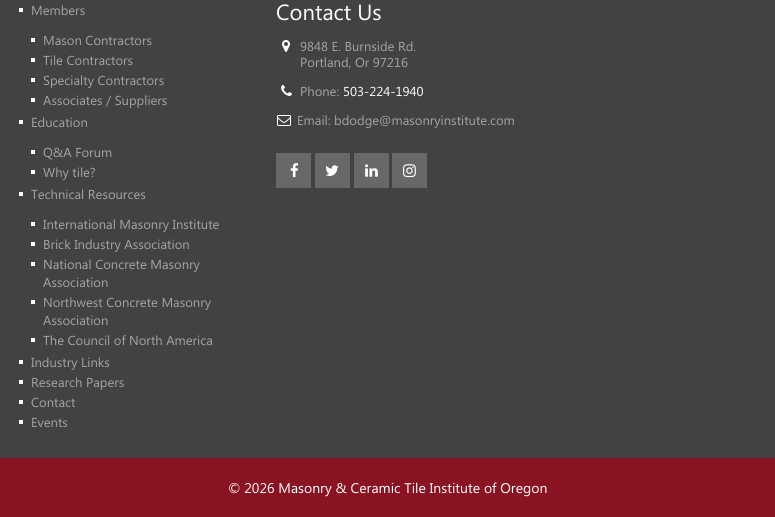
import math
import cairo

surface = cairo.ImageSurface(cairo.FORMAT_RGB24, 775, 517)
ctx = cairo.Context(surface)
options = cairo.FontOptions()
options.set_hint_metrics(cairo.HINT_METRICS_OFF)
options.set_hint_style(cairo.HINT_STYLE_NONE)
ctx.set_font_options(options)
ctx.set_miter_limit(4)


def set_color(code):
    ctx.set_source_rgb(*(v / 255 for v in bytes.fromhex(code[-6:])))


def draw_text(x, y, s, family, size, color, bold=False, italic=False):
    ctx.select_font_face(family, cairo.FONT_SLANT_ITALIC if italic else cairo.FONT_SLANT_NORMAL, cairo.FONT_WEIGHT_BOLD if bold else cairo.FONT_WEIGHT_NORMAL)
    ctx.set_font_size(size)
    set_color(color)
    ctx.move_to(x, y)
    ctx.show_text(s)


def fill_rect(x, y, w, h, color):
    set_color(color)
    ctx.rectangle(x, y, w, h)
    ctx.fill()


def draw_image(path, x, y, w, h):
    ctx.save()
    ctx.set_source_surface(cairo.ImageSurface.create_from_png(path), x, y)
    ctx.rectangle(x, y, w, h)
    ctx.fill()
    ctx.restore()


set_color("#424242")
ctx.paint()
fill_rect(19, 8, 4, 4, "#ffffff")
draw_text(31, 15, "Members", "Segoe UI", 13, "#a3a3a3")
fill_rect(31, 38, 4, 4, "#ffffff")
draw_text(43, 45, "Mason Contractors", "Segoe UI", 13, "#a3a3a3")
fill_rect(31, 58, 4, 4, "#ffffff")
draw_text(43, 65, "Tile Contractors", "Segoe UI", 13, "#a3a3a3")
fill_rect(31, 78, 4, 4, "#ffffff")
draw_text(43, 85, "Specialty Contractors", "Segoe UI", 13, "#a3a3a3")
fill_rect(31, 98, 4, 4, "#ffffff")
draw_text(43, 105, "Associates / Suppliers", "Segoe UI", 13, "#a3a3a3")
fill_rect(19, 120, 4, 4, "#ffffff")
draw_text(31, 127, "Education", "Segoe UI", 13, "#a3a3a3")
fill_rect(31, 150, 4, 4, "#ffffff")
draw_text(43, 157, "Q&A Forum", "Segoe UI", 13, "#a3a3a3")
fill_rect(31, 170, 4, 4, "#ffffff")
draw_text(43, 177, "Why tile?", "Segoe UI", 13, "#a3a3a3")
fill_rect(19, 192, 4, 4, "#ffffff")
draw_text(31, 199, "Technical Resources", "Segoe UI", 13, "#a3a3a3")
fill_rect(31, 222, 4, 4, "#ffffff")
draw_text(43, 229, "International Masonry Institute", "Segoe UI", 13, "#a3a3a3")
fill_rect(31, 242, 4, 4, "#ffffff")
draw_text(43, 249, "Brick Industry Association", "Segoe UI", 13, "#a3a3a3")
fill_rect(31, 262, 4, 4, "#ffffff")
draw_text(43, 269, "National Concrete Masonry", "Segoe UI", 13, "#a3a3a3")
draw_text(43, 287, "Association", "Segoe UI", 13, "#a3a3a3")
fill_rect(31, 300, 4, 4, "#ffffff")
draw_text(43, 307, "Northwest Concrete Masonry", "Segoe UI", 13, "#a3a3a3")
draw_text(43, 325, "Association", "Segoe UI", 13, "#a3a3a3")
fill_rect(31, 338, 4, 4, "#ffffff")
draw_text(43, 345, "The Council of North America", "Segoe UI", 13, "#a3a3a3")
fill_rect(19, 360, 4, 4, "#ffffff")
draw_text(31, 367, "Industry Links", "Segoe UI", 13, "#a3a3a3")
fill_rect(19, 380, 4, 4, "#ffffff")
draw_text(31, 387, "Research Papers", "Segoe UI", 13, "#a3a3a3")
fill_rect(19, 400, 4, 4, "#ffffff")
draw_text(31, 407, "Contact", "Segoe UI", 13, "#a3a3a3")
fill_rect(19, 420, 4, 4, "#ffffff")
draw_text(31, 427, "Events", "Segoe UI", 13, "#a3a3a3")
draw_text(276, 20, "Contact Us", "Segoe UI", 22, "#ffffff")
draw_image("assets/img1.png", 282, 40, 8, 12)
draw_text(300, 51, "9848 E. Burnside Rd.", "Segoe UI", 13, "#a3a3a3")
draw_text(300, 67, "Portland, Or 97216", "Segoe UI", 13, "#a3a3a3")
draw_image("assets/img2.png", 281, 85, 11, 11)
draw_text(300, 96, "Phone:", "Segoe UI", 13, "#a3a3a3")
draw_text(343, 96, "503-224-1940", "Segoe UI", 13, "#ffffff")
draw_image("assets/img3.png", 277, 115, 14, 11)
draw_text(297, 125, "Email: bdodge@masonryinstitute.com", "Segoe UI", 13, "#a3a3a3")
fill_rect(276, 153, 35, 35, "#686868")
draw_image("assets/img4.png", 290, 163, 9, 15)
fill_rect(315, 153, 35, 35, "#686868")
draw_image("assets/img5.png", 325, 165, 14, 11)
fill_rect(354, 153, 35, 35, "#686868")
draw_image("assets/img6.png", 365, 164, 13, 13)
fill_rect(392, 153, 35, 35, "#686868")
draw_image("assets/img7.png", 403, 164, 13, 14)
fill_rect(0, 458, 775, 59, "#891322")
draw_text(228, 493, "© 2026 Masonry & Ceramic Tile Institute of Oregon", "Segoe UI", 14, "#ffffff")
surface.write_to_png("output.png")
